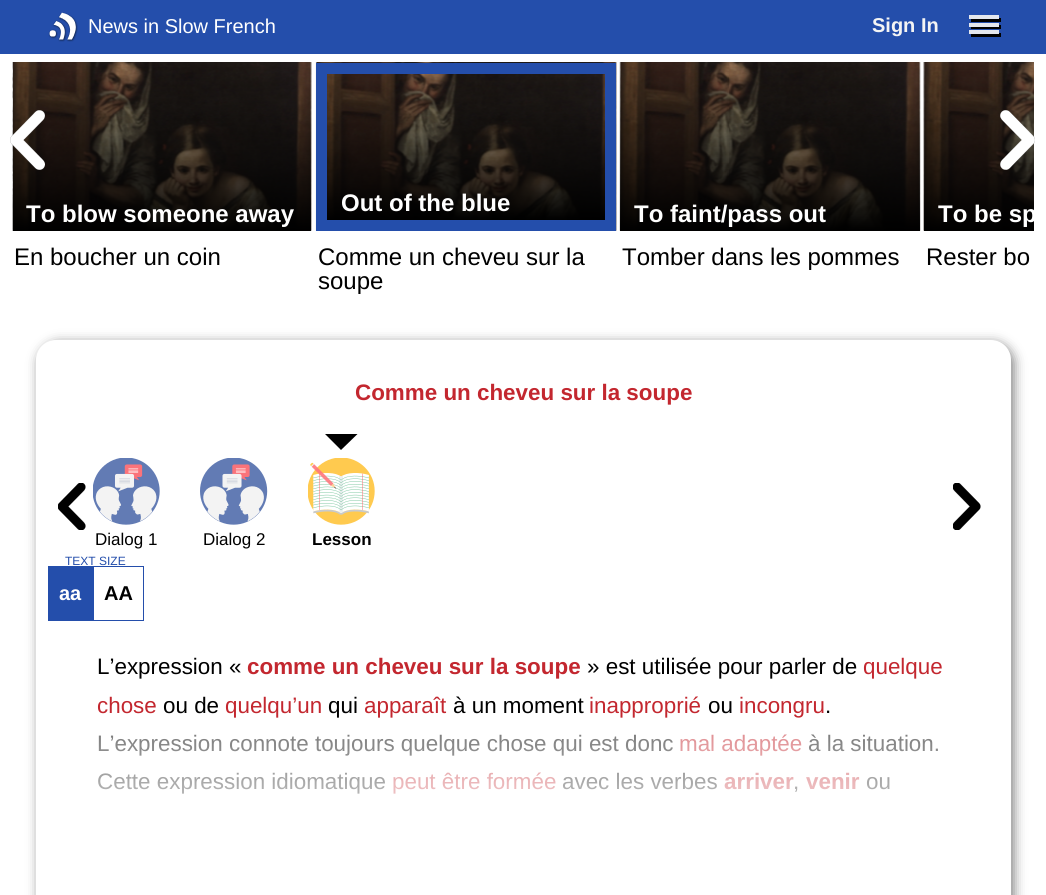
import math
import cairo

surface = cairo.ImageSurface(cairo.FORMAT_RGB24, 1046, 895)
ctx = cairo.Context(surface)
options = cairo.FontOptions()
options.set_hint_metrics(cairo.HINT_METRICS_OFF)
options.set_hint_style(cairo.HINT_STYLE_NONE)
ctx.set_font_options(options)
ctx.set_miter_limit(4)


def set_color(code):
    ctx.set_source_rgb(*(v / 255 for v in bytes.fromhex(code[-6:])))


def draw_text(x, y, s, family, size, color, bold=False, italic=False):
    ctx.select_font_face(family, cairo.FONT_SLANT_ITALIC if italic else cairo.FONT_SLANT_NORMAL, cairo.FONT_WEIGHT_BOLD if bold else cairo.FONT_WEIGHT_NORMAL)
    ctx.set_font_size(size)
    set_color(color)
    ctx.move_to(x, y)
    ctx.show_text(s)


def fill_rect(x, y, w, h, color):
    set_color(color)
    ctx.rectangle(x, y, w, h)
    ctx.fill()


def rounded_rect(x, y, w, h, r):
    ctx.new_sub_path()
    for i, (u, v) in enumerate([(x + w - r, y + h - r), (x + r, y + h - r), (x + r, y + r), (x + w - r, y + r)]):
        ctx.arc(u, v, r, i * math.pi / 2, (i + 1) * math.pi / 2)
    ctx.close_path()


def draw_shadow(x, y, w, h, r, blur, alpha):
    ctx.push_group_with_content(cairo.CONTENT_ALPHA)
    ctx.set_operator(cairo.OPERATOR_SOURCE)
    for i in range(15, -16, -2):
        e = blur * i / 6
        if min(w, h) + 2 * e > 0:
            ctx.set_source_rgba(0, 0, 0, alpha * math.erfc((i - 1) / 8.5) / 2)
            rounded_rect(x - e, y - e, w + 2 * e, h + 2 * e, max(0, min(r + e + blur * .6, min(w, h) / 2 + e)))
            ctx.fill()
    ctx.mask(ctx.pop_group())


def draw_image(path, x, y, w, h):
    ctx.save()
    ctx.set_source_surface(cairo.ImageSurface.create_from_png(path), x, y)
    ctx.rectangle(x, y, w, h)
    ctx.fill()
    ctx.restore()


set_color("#ffffff")
ctx.paint()
fill_rect(0, 0, 1046, 54, "#244eab")
draw_image("assets/img1.png", 48, 12, 30, 30)
draw_text(88, 33, "News in Slow French", "Liberation Sans", 20, "#ffffff")
draw_text(872, 32, "Sign In", "Liberation Sans", 20, "#f4f4f4", bold=True)
set_color("#000000")
ctx.new_path()
ctx.move_to(971, 19)
ctx.line_to(971, 22)
ctx.line_to(1001, 22)
ctx.line_to(1001, 18)
ctx.line_to(999, 18)
ctx.line_to(999, 19)
ctx.close_path()
ctx.fill()
fill_rect(969, 15, 30, 4, "#e4e7ed")
set_color("#000000")
ctx.new_path()
ctx.move_to(971, 26)
ctx.line_to(971, 29)
ctx.line_to(1001, 29)
ctx.line_to(1001, 25)
ctx.line_to(999, 25)
ctx.line_to(999, 26)
ctx.close_path()
ctx.fill()
fill_rect(969, 23, 30, 4, "#e4e7ed")
set_color("#000000")
ctx.new_path()
ctx.move_to(971, 34)
ctx.line_to(971, 37)
ctx.line_to(1001, 37)
ctx.line_to(1001, 33)
ctx.line_to(999, 33)
ctx.line_to(999, 34)
ctx.close_path()
ctx.fill()
fill_rect(969, 30, 30, 4, "#e4e7ed")
draw_image("assets/img4.png", 12, 62, 300, 169)
draw_image("assets/img5.png", 13, 62, 299, 169)
gradient = cairo.LinearGradient(161, 231, 161, 63)
gradient.add_color_stop_rgba(0, 0, 0, 0, 1)
gradient.add_color_stop_rgba(1, 0, 0, 0, 0)
ctx.set_source(gradient)
ctx.rectangle(13, 67, 298, 164)
ctx.fill()
draw_image("assets/img2.png", 10, 110, 35, 60)
draw_image("assets/img10.png", 923, 62, 2, 169)
draw_image("assets/img11.png", 923, 62, 111, 169)
gradient = cairo.LinearGradient(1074, 231, 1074, 63)
gradient.add_color_stop_rgba(0, 0, 0, 0, 1)
gradient.add_color_stop_rgba(1, 0, 0, 0, 0)
ctx.set_source(gradient)
ctx.rectangle(924, 67, 110, 164)
ctx.fill()
draw_image("assets/img3.png", 1000, 110, 35, 60)
draw_text(26, 222, "To blow someone away", "Liberation Sans", 24, "#ffffff", bold=True)
draw_text(14, 265, "En boucher un coin", "Liberation Sans", 24, "#000000")
draw_image("assets/img6.png", 316, 62, 301, 169)
draw_image("assets/img7.png", 315, 62, 302, 169)
gradient = cairo.LinearGradient(466, 220, 466, 74)
gradient.add_color_stop_rgba(0, 0, 0, 0, 1)
gradient.add_color_stop_rgba(1, 0, 0, 0, 0)
ctx.set_source(gradient)
ctx.rectangle(327, 77, 278, 143)
ctx.fill()
ctx.rectangle(321.5, 68.5, 289, 157)
set_color("#244eab")
ctx.set_line_width(11)
ctx.stroke()
draw_text(341, 211, "Out of the blue", "Liberation Sans", 24, "#ffffff", bold=True)
draw_text(318, 265, "Comme un cheveu sur la", "Liberation Sans", 24, "#000000")
draw_text(318, 289, "soupe", "Liberation Sans", 24, "#000000")
fill_rect(620, 63, 300, 167, "#fafafa")
draw_image("assets/img8.png", 620, 62, 301, 169)
draw_image("assets/img9.png", 619, 62, 302, 169)
gradient = cairo.LinearGradient(770, 231, 770, 63)
gradient.add_color_stop_rgba(0, 0, 0, 0, 1)
gradient.add_color_stop_rgba(1, 0, 0, 0, 0)
ctx.set_source(gradient)
ctx.rectangle(620, 67, 300, 164)
ctx.fill()
draw_text(634, 222, "To faint/pass out", "Liberation Sans", 24, "#ffffff", bold=True)
draw_text(622, 265, "Tomber dans les pommes", "Liberation Sans", 24, "#000000")
ctx.save()
ctx.rectangle(924, 63, 110, 168)
ctx.clip()
draw_text(938, 222, "To be sp", "Liberation Sans", 24, "#ffffff", bold=True)
ctx.restore()
draw_text(926, 265, "Rester bo", "Liberation Sans", 24, "#000000")
set_color("#808080")
draw_shadow(39, 343, 975, 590, 20, 6, 1)
set_color("#ffffff")
rounded_rect(36, 340, 975, 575, 20)
ctx.fill()
draw_text(355, 400, "Comme un cheveu sur la soupe", "Liberation Sans", 22.4, "#c3272f", bold=True)
draw_image("assets/img12.png", 58, 483, 28, 47)
draw_image("assets/img13.png", 953, 483, 28, 47)
draw_image("assets/img14.png", 93, 458, 67, 67)
draw_text(95, 545, "Dialog 1", "Liberation Sans", 17, "#000000")
draw_image("assets/img15.png", 200, 458, 68, 67)
draw_text(203, 545, "Dialog 2", "Liberation Sans", 17, "#000000")
draw_image("assets/img16.png", 308, 458, 67, 67)
ctx.new_path()
ctx.move_to(325, 434)
ctx.line_to(357.5, 434)
ctx.line_to(341, 450)
ctx.close_path()
ctx.fill()
draw_text(312, 545, "Lesson", "Liberation Sans", 17, "#000000", bold=True)
draw_text(65, 565, "TEXT SIZE", "Liberation Sans", 12, "#244eab")
fill_rect(48, 566, 45, 55, "#244eab")
draw_text(59, 600, "aa", "Liberation Sans", 20, "#ffffff", bold=True)
ctx.rectangle(93.5, 566.5, 50, 54)
set_color("#244eab")
ctx.set_line_width(1)
ctx.stroke()
draw_text(104, 600, "AA", "Liberation Sans", 20, "#000000", bold=True)
draw_text(97, 674, "L’expression «", "Liberation Sans", 22.4, "#000000")
draw_text(247, 674, "comme un cheveu sur la soupe", "Liberation Sans", 22.4, "#c3272f", bold=True)
draw_text(587, 674, "» est utilisée pour parler de", "Liberation Sans", 22.4, "#000000")
draw_text(863, 674, "quelque", "Liberation Sans", 22.4, "#c3272f")
draw_text(97, 713, "chose", "Liberation Sans", 22.4, "#c3272f")
draw_text(163, 713, "ou de", "Liberation Sans", 22.4, "#000000")
draw_text(225, 713, "quelqu’un", "Liberation Sans", 22.4, "#c3272f")
draw_text(328, 713, "qui", "Liberation Sans", 22.4, "#000000")
draw_text(364, 713, "apparaît", "Liberation Sans", 22.4, "#c3272f")
draw_text(453, 713, "à un moment", "Liberation Sans", 22.4, "#000000")
draw_text(589, 713, "inapproprié", "Liberation Sans", 22.4, "#c3272f")
draw_text(708, 713, "ou", "Liberation Sans", 22.4, "#000000")
draw_text(739, 713, "incongru", "Liberation Sans", 22.4, "#c3272f")
draw_text(825, 713, ".", "Liberation Sans", 22.4, "#000000")
draw_text(97, 751, "L’expression connote toujours quelque chose qui est donc", "Liberation Sans", 22.4, "#000000")
draw_text(679, 751, "mal adaptée", "Liberation Sans", 22.4, "#c3272f")
draw_text(808, 751, "à la situation.", "Liberation Sans", 22.4, "#000000")
draw_text(97, 789, "Cette expression idiomatique", "Liberation Sans", 22.4, "#000000")
draw_text(392, 789, "peut être formée", "Liberation Sans", 22.4, "#c3272f")
draw_text(562, 789, "avec les verbes", "Liberation Sans", 22.4, "#000000")
draw_text(724, 789, "arriver", "Liberation Sans", 22.4, "#c3272f", bold=True)
draw_text(793, 789, ",", "Liberation Sans", 22.4, "#000000")
draw_text(806, 789, "venir", "Liberation Sans", 22.4, "#c3272f", bold=True)
draw_text(866, 789, "ou", "Liberation Sans", 22.4, "#000000")
gradient = cairo.LinearGradient(523, 720, 523, 876)
gradient.add_color_stop_rgba(0, 1, 1, 1, 0)
gradient.add_color_stop_rgba(0.1, 1, 1, 1, 0.5)
gradient.add_color_stop_rgba(1, 1, 1, 1, 1)
ctx.set_source(gradient)
ctx.rectangle(97, 734, 842, 60)
ctx.fill()
surface.write_to_png("output.png")
